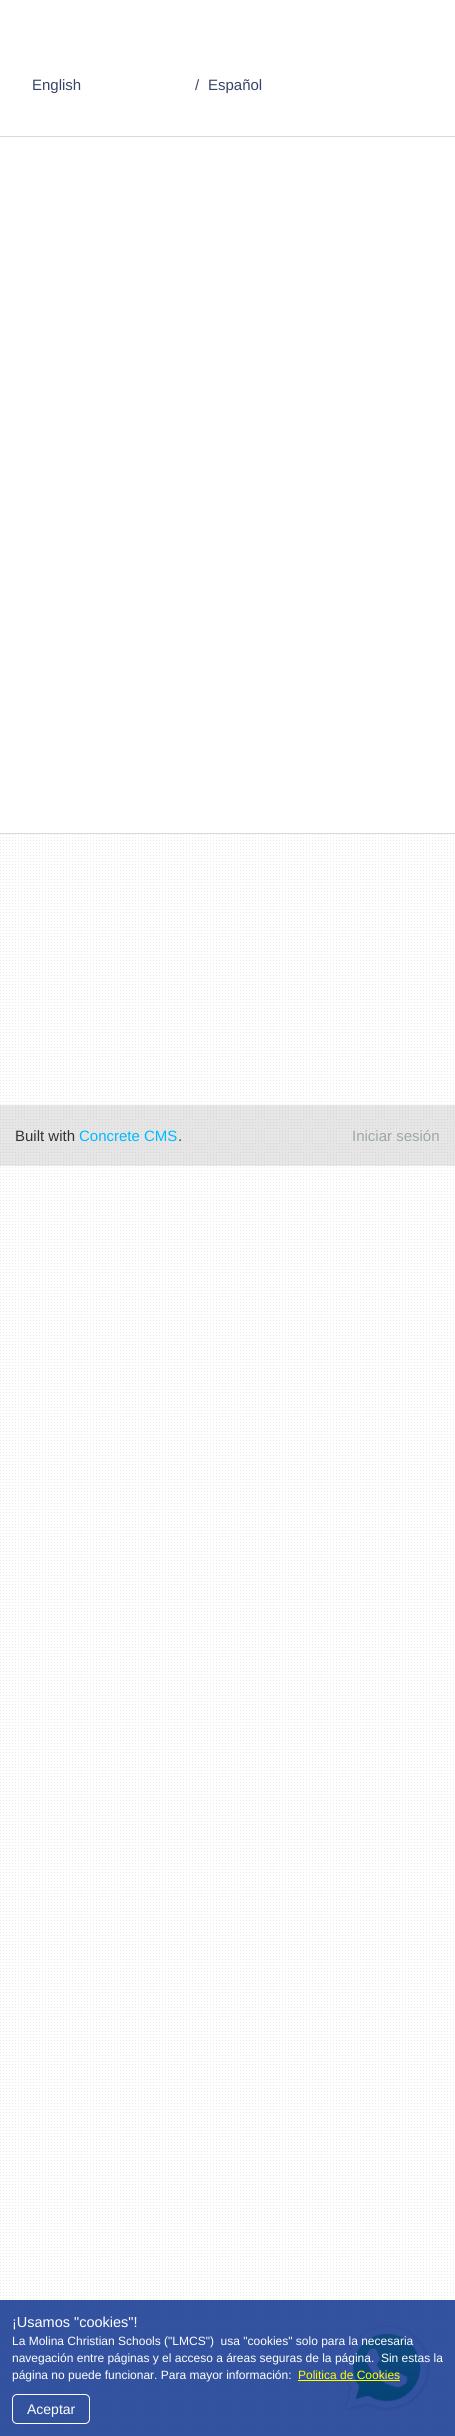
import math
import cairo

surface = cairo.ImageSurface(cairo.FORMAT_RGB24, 455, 2436)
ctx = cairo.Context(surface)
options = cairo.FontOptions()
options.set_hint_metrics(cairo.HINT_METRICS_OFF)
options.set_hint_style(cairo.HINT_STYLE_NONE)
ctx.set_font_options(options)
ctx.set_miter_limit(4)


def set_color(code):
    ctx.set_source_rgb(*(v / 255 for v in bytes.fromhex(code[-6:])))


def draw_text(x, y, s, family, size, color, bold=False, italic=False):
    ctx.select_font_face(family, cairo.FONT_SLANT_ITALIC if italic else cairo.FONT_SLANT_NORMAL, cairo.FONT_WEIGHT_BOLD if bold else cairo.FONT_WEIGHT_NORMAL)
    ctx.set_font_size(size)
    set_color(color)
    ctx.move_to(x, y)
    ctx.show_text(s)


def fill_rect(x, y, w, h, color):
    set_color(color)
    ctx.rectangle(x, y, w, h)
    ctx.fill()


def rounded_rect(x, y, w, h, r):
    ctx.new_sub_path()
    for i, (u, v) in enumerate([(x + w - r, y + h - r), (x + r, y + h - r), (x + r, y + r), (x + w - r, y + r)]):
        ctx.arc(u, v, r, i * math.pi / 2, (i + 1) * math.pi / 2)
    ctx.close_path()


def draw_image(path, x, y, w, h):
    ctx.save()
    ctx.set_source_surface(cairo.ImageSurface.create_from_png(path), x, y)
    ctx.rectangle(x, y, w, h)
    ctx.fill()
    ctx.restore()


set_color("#ffffff")
ctx.paint()
draw_image("assets/img1.png", 0, 834, 454, 1600)
fill_rect(0, 136, 455, 1, "#d9d9d9")
draw_text(32, 90, "English", "Liberation Sans", 15, "#374467")
draw_text(195, 90, "/", "Liberation Sans", 15, "#374467")
draw_text(208, 90, "Español", "Liberation Sans", 15, "#374467")
draw_image("assets/img2.png", 344, 2324, 86, 88)
ctx.set_source_rgba(0, 0.157, 0.533, 0.8)
ctx.rectangle(0, 2300, 455, 136)
ctx.fill()
draw_text(12, 2327, "¡Usamos \"cookies\"!", "Liberation Sans", 14.5, "#ffffff")
draw_text(12, 2345, "La Molina Christian Schools (\"LMCS\")  usa \"cookies\" solo para la necesaria", "Liberation Sans", 12, "#ffffff")
draw_text(12, 2362, "navegación entre páginas y el acceso a áreas seguras de la página.  Sin estas la", "Liberation Sans", 12, "#ffffff")
draw_text(12, 2379, "página no puede funcionar. Para mayor información:", "Liberation Sans", 12, "#ffffff")
draw_text(298, 2379, "Politica de Cookies", "Liberation Sans", 12, "#ffff00")
fill_rect(298, 2380, 102, 1, "#ffff00")
rounded_rect(12.5, 2394.5, 77, 29, 4.5)
set_color("#ffffff")
ctx.set_line_width(1)
ctx.stroke()
draw_text(27, 2414, "Aceptar", "Liberation Sans", 14, "#ffffff")
fill_rect(0, 833, 455, 1, "#d9d9d9")
ctx.set_source_rgba(0, 0, 0, 0.1)
ctx.rectangle(0, 1105, 455, 61)
ctx.fill()
draw_text(15, 1141, "Built with", "Liberation Sans", 15, "#333333")
draw_text(79, 1141, "Concrete CMS", "Liberation Sans", 15, "#00baff")
draw_text(178, 1141, ".", "Liberation Sans", 15, "#333333")
draw_text(352, 1141, "Iniciar sesión", "Liberation Sans", 15, "#9fa7aa")
surface.write_to_png("output.png")
